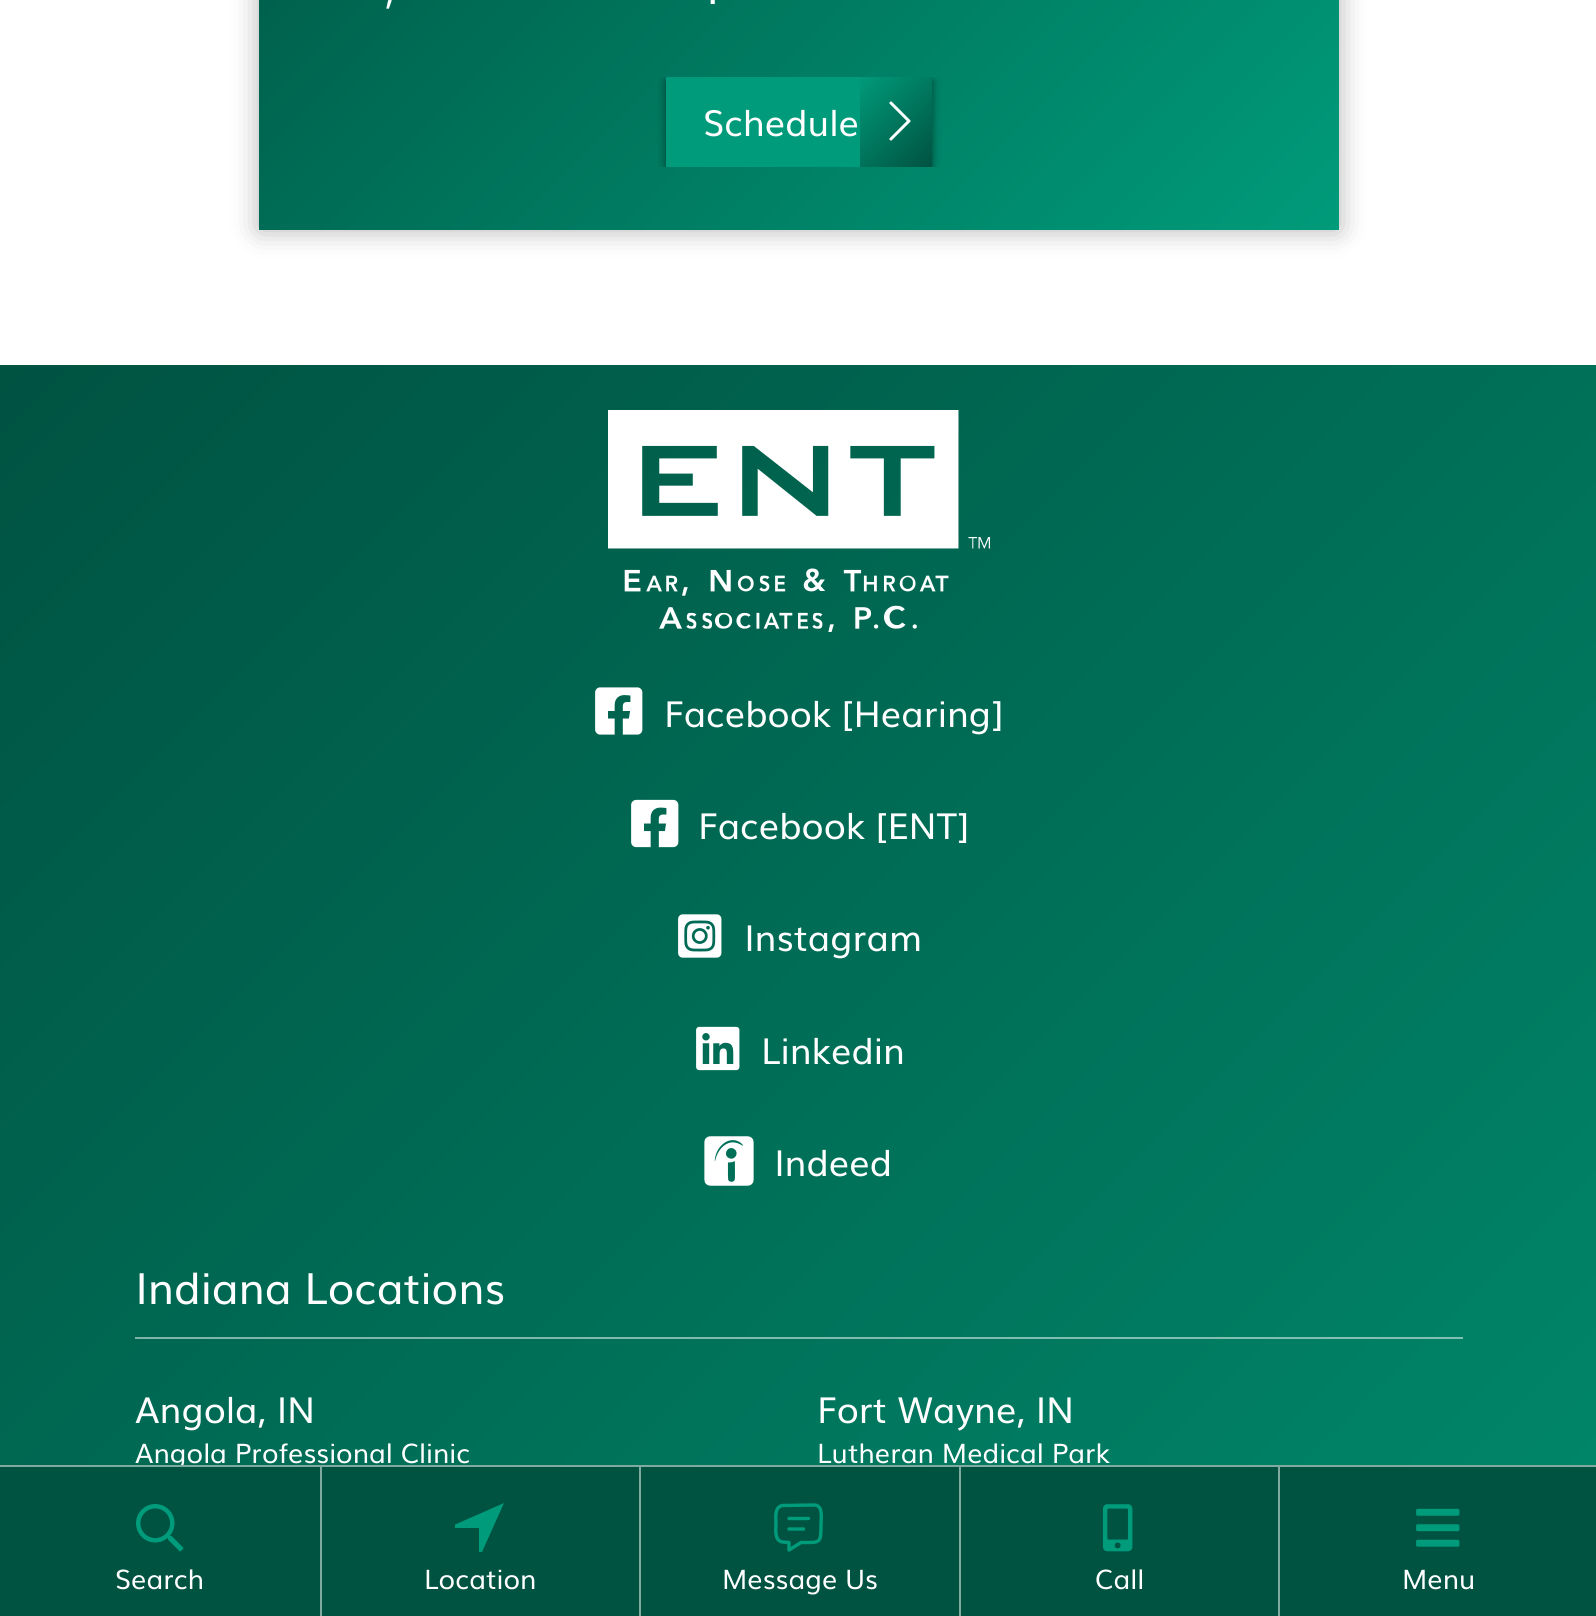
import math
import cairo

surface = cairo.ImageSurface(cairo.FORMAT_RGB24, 1596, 1616)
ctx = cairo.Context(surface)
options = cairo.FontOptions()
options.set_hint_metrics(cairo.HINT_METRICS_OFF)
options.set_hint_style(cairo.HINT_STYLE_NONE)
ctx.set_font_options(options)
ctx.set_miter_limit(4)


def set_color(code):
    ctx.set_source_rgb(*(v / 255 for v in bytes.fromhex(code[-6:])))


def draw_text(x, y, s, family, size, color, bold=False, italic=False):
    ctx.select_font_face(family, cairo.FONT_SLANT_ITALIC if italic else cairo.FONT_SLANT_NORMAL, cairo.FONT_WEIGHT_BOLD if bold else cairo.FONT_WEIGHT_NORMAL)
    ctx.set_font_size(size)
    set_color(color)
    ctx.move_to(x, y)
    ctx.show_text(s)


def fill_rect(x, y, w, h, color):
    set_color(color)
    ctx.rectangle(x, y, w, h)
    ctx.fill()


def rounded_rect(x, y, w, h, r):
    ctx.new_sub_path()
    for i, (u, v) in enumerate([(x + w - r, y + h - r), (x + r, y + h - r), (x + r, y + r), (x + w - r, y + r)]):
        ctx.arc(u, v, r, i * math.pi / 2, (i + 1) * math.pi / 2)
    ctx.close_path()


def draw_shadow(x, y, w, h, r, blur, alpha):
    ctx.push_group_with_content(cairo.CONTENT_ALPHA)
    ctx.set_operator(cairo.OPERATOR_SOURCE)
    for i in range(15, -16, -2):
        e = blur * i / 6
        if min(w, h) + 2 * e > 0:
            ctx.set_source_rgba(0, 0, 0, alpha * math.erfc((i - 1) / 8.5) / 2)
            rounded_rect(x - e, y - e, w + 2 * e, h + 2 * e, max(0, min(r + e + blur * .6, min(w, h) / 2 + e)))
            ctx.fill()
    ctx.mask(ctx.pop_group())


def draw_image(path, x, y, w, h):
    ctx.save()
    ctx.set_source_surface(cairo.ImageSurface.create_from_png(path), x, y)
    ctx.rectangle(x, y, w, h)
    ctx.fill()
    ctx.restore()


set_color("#ffffff")
ctx.paint()
set_color("#000000")
draw_shadow(259, -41, 1080, 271, 0, 13.5, 0.3)
gradient = cairo.LinearGradient(1214, 354, 383, -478)
gradient.add_color_stop_rgba(0, 0, 0.608, 0.478, 1)
gradient.add_color_stop_rgba(1, 0, 0.322, 0.255, 1)
ctx.set_source(gradient)
ctx.rectangle(259, 0, 1080, 230)
ctx.fill()
draw_text(385, 4, ",", "Muli", 36, "#ffffff")
draw_text(708, 4, ".", "Muli", 36, "#ffffff")
ctx.save()
ctx.rectangle(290, 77, 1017, 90)
ctx.clip()
set_color("#000000")
draw_shadow(666, 81, 266, 90, 0, 4.5, 0.5)
ctx.restore()
fill_rect(666, 77, 194, 90, "#009b7a")
gradient = cairo.LinearGradient(855, 81, 936, 162)
gradient.add_color_stop_rgba(0, 0, 0.608, 0.478, 1)
gradient.add_color_stop_rgba(1, 0, 0.322, 0.255, 1)
ctx.set_source(gradient)
ctx.rectangle(860, 77, 72, 90)
ctx.fill()
draw_text(703, 136, "Schedule", "Muli", 36, "#ffffff")
draw_image("assets/img1.png", 889, 101, 22, 40)
gradient = cairo.LinearGradient(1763, 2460, -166, 530)
gradient.add_color_stop_rgba(0, 0, 0.608, 0.478, 1)
gradient.add_color_stop_rgba(1, 0, 0.322, 0.255, 1)
ctx.set_source(gradient)
ctx.rectangle(0, 365, 1596, 1100)
ctx.fill()
gradient = cairo.LinearGradient(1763, 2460, -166, 530)
gradient.add_color_stop_rgba(0, 0.502, 0.804, 0.741, 1)
gradient.add_color_stop_rgba(1, 0.502, 0.663, 0.627, 1)
ctx.set_source(gradient)
ctx.rectangle(135, 1337, 1328, 2)
ctx.fill()
draw_image("assets/img2.png", 608, 410, 382, 222)
draw_image("assets/img3.png", 595, 687, 48, 48)
draw_text(664, 727, "Facebook [Hearing]", "Muli", 36, "#ffffff")
draw_image("assets/img4.png", 631, 799, 48, 49)
draw_text(698, 839, "Facebook [ENT]", "Muli", 36, "#ffffff")
draw_image("assets/img5.png", 678, 914, 44, 44)
draw_text(744, 951, "Instagram", "Muli", 36, "#ffffff")
draw_image("assets/img6.png", 696, 1026, 44, 45)
draw_text(761, 1064, "Linkedin", "Muli", 36, "#ffffff")
draw_image("assets/img7.png", 704, 1136, 50, 50)
draw_text(774, 1176, "Indeed", "Muli", 36, "#ffffff")
draw_text(135, 1304, "Indiana Locations", "Muli", 43.25, "#ffffff")
draw_text(135, 1423, "Angola, IN", "Muli", 36, "#ffffff")
draw_text(135, 1463, "Angola Professional Clinic", "Muli", 27, "#ffffff")
draw_text(817, 1423, "Fort Wayne, IN", "Muli", 36, "#ffffff")
draw_text(817, 1463, "Lutheran Medical Park", "Muli", 27, "#ffffff")
fill_rect(0, 1467, 1596, 149, "#005241")
fill_rect(0, 1465, 1596, 2, "#80a9a0")
draw_image("assets/img8.png", 136, 1504, 48, 48)
draw_text(115, 1589, "Search", "Muli", 27, "#ffffff")
fill_rect(320, 1467, 2, 149, "#80a9a0")
ctx.save()
ctx.rectangle(455, 1503, 49, 50)
ctx.clip()
set_color("#009b7a")
ctx.new_path()
ctx.move_to(454, 1528)
ctx.line_to(479, 1528)
ctx.line_to(479, 1552)
ctx.line_to(482, 1552)
ctx.line_to(504, 1503)
ctx.line_to(454, 1525)
ctx.close_path()
ctx.fill()
ctx.restore()
draw_text(424, 1589, "Location", "Muli", 27, "#ffffff")
fill_rect(639, 1467, 2, 149, "#80a9a0")
ctx.new_path()
ctx.move_to(789, 1518.5)
ctx.line_to(808.5, 1518.5)
ctx.move_to(789, 1529)
ctx.line_to(803.5, 1529)
ctx.move_to(814, 1505)
ctx.curve_to(823.5, 1505, 821, 1518, 821, 1524)
ctx.curve_to(821, 1544, 820.5, 1542.5, 801, 1542.5)
ctx.line_to(789, 1550)
ctx.line_to(789, 1542.5)
ctx.line_to(782.5, 1542)
ctx.curve_to(774, 1540.5, 776, 1529.5, 776, 1524)
ctx.curve_to(776, 1518, 774, 1507, 782.5, 1505.5)
ctx.close_path()
set_color("#009b7a")
ctx.set_line_width(3.4)
ctx.set_line_cap(cairo.LINE_CAP_ROUND)
ctx.set_line_join(cairo.LINE_JOIN_ROUND)
ctx.stroke()
draw_text(722, 1589, "Message Us", "Muli", 27, "#ffffff")
fill_rect(959, 1467, 2, 149, "#80a9a0")
draw_image("assets/img9.png", 1102, 1504, 31, 48)
draw_text(1095, 1589, "Call", "Muli", 27, "#ffffff")
fill_rect(1278, 1467, 2, 149, "#80a9a0")
draw_image("assets/img10.png", 1416, 1508, 44, 39)
draw_text(1402, 1589, "Menu", "Muli", 27, "#ffffff")
surface.write_to_png("output.png")
